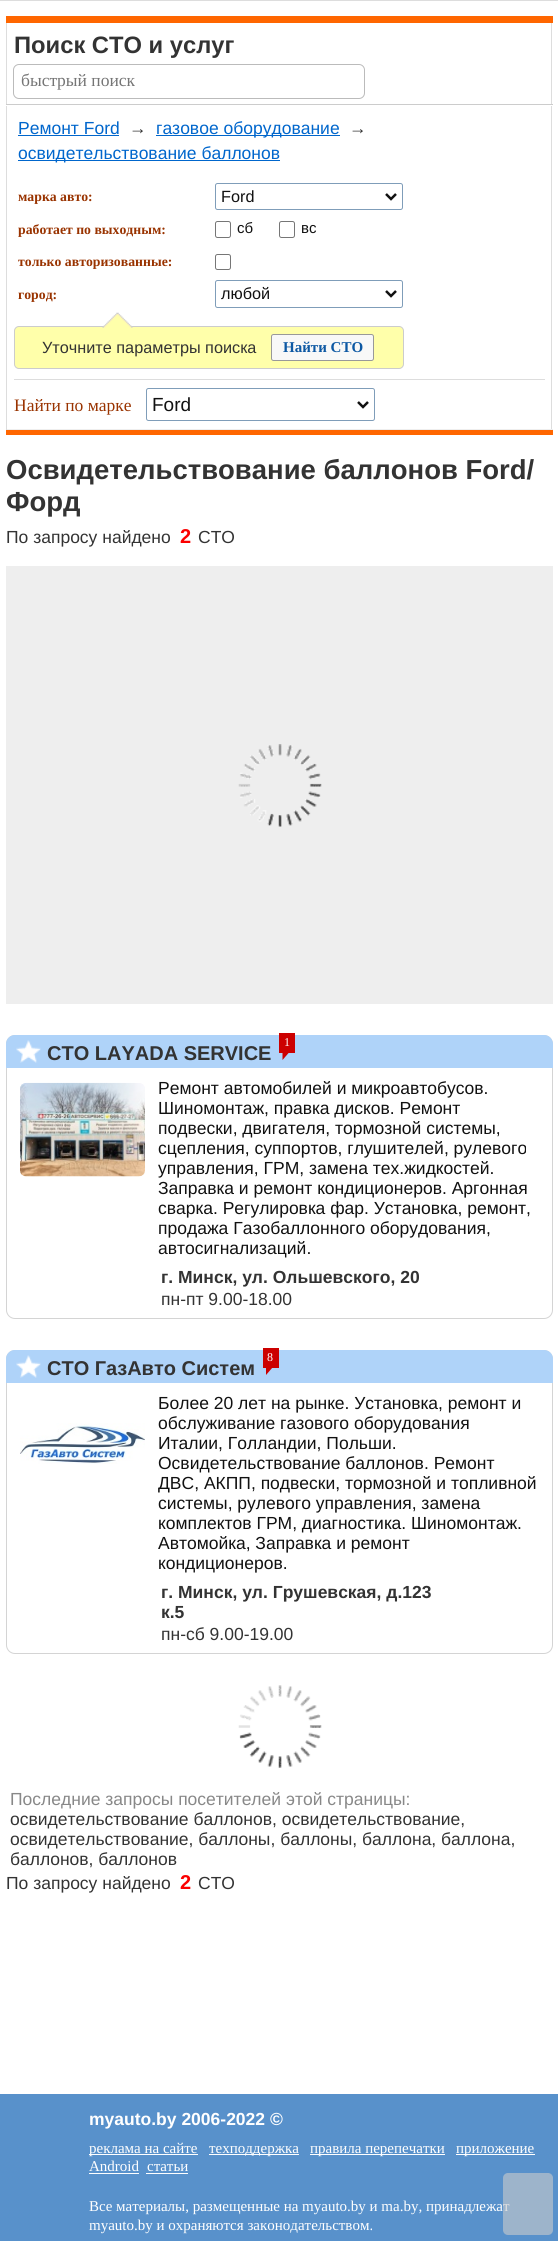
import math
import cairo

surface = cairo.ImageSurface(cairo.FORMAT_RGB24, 558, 2241)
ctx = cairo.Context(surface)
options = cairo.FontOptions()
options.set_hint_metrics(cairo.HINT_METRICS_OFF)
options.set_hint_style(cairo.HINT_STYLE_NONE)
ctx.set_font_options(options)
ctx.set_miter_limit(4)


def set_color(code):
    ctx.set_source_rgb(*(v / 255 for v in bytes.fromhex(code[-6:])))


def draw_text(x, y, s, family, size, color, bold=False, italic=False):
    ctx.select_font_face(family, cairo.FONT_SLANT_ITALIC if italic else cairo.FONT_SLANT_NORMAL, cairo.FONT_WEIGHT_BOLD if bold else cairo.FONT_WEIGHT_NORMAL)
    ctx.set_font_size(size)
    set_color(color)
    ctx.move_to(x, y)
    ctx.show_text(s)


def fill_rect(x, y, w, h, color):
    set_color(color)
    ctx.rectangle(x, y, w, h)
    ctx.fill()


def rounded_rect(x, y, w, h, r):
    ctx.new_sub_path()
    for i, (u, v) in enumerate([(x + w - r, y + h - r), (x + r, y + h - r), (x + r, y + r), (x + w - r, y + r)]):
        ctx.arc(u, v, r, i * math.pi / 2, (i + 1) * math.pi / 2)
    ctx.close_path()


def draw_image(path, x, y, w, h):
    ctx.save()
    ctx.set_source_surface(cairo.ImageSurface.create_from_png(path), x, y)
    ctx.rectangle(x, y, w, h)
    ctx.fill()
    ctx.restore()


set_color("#ffffff")
ctx.paint()
fill_rect(0, 0, 558, 1, "#dddddd")
fill_rect(6, 16, 547, 7, "#ff6600")
fill_rect(551, 23, 1, 82, "#dddddd")
fill_rect(6, 23, 1, 82, "#dddddd")
draw_text(14, 53, "Поиск СТО и услуг", "Liberation Sans", 23.75, "#333333", bold=True)
rounded_rect(13.5, 64.5, 351, 34, 5.5)
set_color("#bbbbbb")
ctx.set_line_width(1)
ctx.stroke()
draw_text(21, 86, "быстрый поиск", "Liberation Serif", 17.5, "#757575")
fill_rect(6, 104, 547, 1, "#cccccc")
fill_rect(551, 106, 1, 324, "#dddddd")
fill_rect(6, 429, 547, 1, "#eeeeee")
fill_rect(6, 106, 1, 324, "#dddddd")
draw_text(18, 134, "Ремонт Ford", "Liberation Sans", 17.5, "#0066cc")
fill_rect(18, 135, 101, 1, "#0066cc")
draw_text(129, 134, "→", "Liberation Sans", 17.5, "#333333")
fill_rect(156, 135, 184, 1, "#0066cc")
draw_text(156, 134, "газовое оборудование", "Liberation Sans", 17.5, "#0066cc")
draw_text(349, 134, "→", "Liberation Sans", 17.5, "#333333")
fill_rect(18, 160, 262, 1, "#0066cc")
draw_text(18, 159, "освидетельствование баллонов", "Liberation Sans", 17.5, "#0066cc")
draw_text(18, 201, "марка авто:", "Liberation Serif", 13.75, "#993300", bold=True)
rounded_rect(215.5, 183.5, 187, 26, 2)
set_color("#7f9db9")
ctx.stroke()
ctx.new_path()
ctx.move_to(386, 194)
ctx.line_to(391, 199)
ctx.line_to(396, 194)
set_color("#111111")
ctx.set_line_width(2.5)
ctx.stroke()
draw_text(221, 202, "Ford", "Liberation Sans", 16.25, "#111111")
draw_text(18, 234, "работает по выходным:", "Liberation Serif", 13.75, "#993300", bold=True)
rounded_rect(215.5, 221.5, 15, 16, 2)
set_color("#767676")
ctx.set_line_width(1)
ctx.stroke()
draw_text(237, 233, "сб", "Liberation Sans", 15, "#111111")
rounded_rect(279.5, 221.5, 15, 16, 2)
set_color("#767676")
ctx.stroke()
draw_text(301, 233, "вс", "Liberation Sans", 15, "#111111")
draw_text(18, 266, "только авторизованные:", "Liberation Serif", 13.75, "#993300", bold=True)
rounded_rect(215.5, 254.5, 15, 15, 2)
set_color("#767676")
ctx.stroke()
draw_text(18, 299, "город:", "Liberation Serif", 13.75, "#993300", bold=True)
rounded_rect(215.5, 280.5, 187, 27, 2)
set_color("#7f9db9")
ctx.stroke()
ctx.new_path()
ctx.move_to(386, 291)
ctx.line_to(391, 296)
ctx.line_to(396, 291)
set_color("#111111")
ctx.set_line_width(2.5)
ctx.stroke()
draw_text(221, 299, "любой", "Liberation Sans", 16.25, "#111111")
set_color("#ffffaa")
rounded_rect(14.5, 326.5, 389, 42, 4.5)
ctx.fill_preserve()
set_color("#cccccc")
ctx.set_line_width(1)
ctx.stroke()
draw_image("assets/img1.png", 102, 312, 31, 16)
draw_text(42, 353, "Уточните параметры поиска", "Liberation Sans", 16.25, "#333333")
set_color("#f8f8f8")
rounded_rect(271.5, 334.5, 102, 26, 2)
ctx.fill_preserve()
set_color("#999999")
ctx.stroke()
draw_text(283, 352, "Найти СТО", "Liberation Serif", 15, "#0d58a3", bold=True)
fill_rect(14, 379, 531, 1, "#dddddd")
draw_text(14, 411, "Найти по марке", "Liberation Serif", 17.5, "#993300")
rounded_rect(146.5, 388.5, 228, 32, 2)
set_color("#7f9db9")
ctx.stroke()
ctx.new_path()
ctx.move_to(358, 402)
ctx.line_to(363, 407)
ctx.line_to(368, 402)
set_color("#111111")
ctx.set_line_width(2.5)
ctx.stroke()
draw_text(152, 411, "Ford", "Liberation Sans", 19, "#111111")
fill_rect(6, 430, 547, 5, "#ff6600")
draw_text(6, 479, "Освидетельствование баллонов Ford/", "Liberation Sans", 27.5, "#333333", bold=True)
draw_text(6, 511, "Форд", "Liberation Sans", 27.5, "#333333", bold=True)
draw_text(6, 543, "По запросу найдено", "Liberation Sans", 17.5, "#333333")
draw_text(180, 543, "2", "Liberation Sans", 20, "#fb0000", bold=True)
draw_text(198, 543, "СТО", "Liberation Sans", 17.5, "#333333")
fill_rect(6, 566, 547, 438, "#eeeeee")
draw_image("assets/img2.png", 238, 744, 84, 83)
rounded_rect(6.5, 1035.5, 546, 283, 8.5)
set_color("#d4d4d4")
ctx.set_line_width(1)
ctx.stroke()
set_color("#afd3f9")
ctx.new_path()
ctx.move_to(15, 1035)
ctx.line_to(544, 1035)
ctx.curve_to(549, 1035, 553, 1039, 553, 1044)
ctx.line_to(553, 1068)
ctx.line_to(6, 1068)
ctx.line_to(6, 1044)
ctx.curve_to(6, 1039, 10, 1035, 15, 1035)
ctx.close_path()
ctx.fill()
draw_image("assets/img3.png", 16, 1040, 25, 23)
draw_text(47, 1060, "СТО LAYADA SERVICE", "Liberation Sans", 20, "#333333", bold=True)
set_color("#cc0000")
ctx.new_path()
ctx.move_to(282.5, 1060)
ctx.line_to(282.5, 1042.5)
ctx.line_to(289, 1042.5)
ctx.line_to(289, 1052.5)
ctx.close_path()
ctx.fill()
fill_rect(279, 1033, 16, 20, "#cc0000")
draw_text(284, 1046, "1", "Liberation Serif", 12, "#ffffff")
draw_image("assets/img4.png", 20, 1082, 125, 95)
draw_text(158, 1094, "Ремонт автомобилей и микроавтобусов.", "Liberation Sans", 17.5, "#111111")
draw_text(158, 1114, "Шиномонтаж, правка дисков. Ремонт", "Liberation Sans", 17.5, "#111111")
draw_text(158, 1134, "подвески, двигателя, тормозной системы,", "Liberation Sans", 17.5, "#111111")
draw_text(158, 1154, "сцепления, суппортов, глушителей, рулевого", "Liberation Sans", 17.5, "#111111")
draw_text(158, 1174, "управления, ГРМ, замена тех.жидкостей.", "Liberation Sans", 17.5, "#111111")
draw_text(158, 1194, "Заправка и ремонт кондиционеров. Аргонная", "Liberation Sans", 17.5, "#111111")
draw_text(158, 1214, "сварка. Регулировка фар. Установка, ремонт,", "Liberation Sans", 17.5, "#111111")
draw_text(158, 1234, "продажа Газобаллонного оборудования,", "Liberation Sans", 17.5, "#111111")
draw_text(158, 1254, "автосигнализаций.", "Liberation Sans", 17.5, "#111111")
draw_text(161, 1283, "г. Минск, ул. Ольшевского, 20", "Liberation Sans", 17.5, "#333333", bold=True)
draw_text(161, 1305, "пн-пт 9.00-18.00", "Liberation Sans", 17.5, "#333333")
rounded_rect(6.5, 1350.5, 546, 303, 8.5)
set_color("#d4d4d4")
ctx.stroke()
set_color("#afd3f9")
ctx.new_path()
ctx.move_to(15, 1350)
ctx.line_to(544, 1350)
ctx.curve_to(549, 1350, 553, 1354, 553, 1359)
ctx.line_to(553, 1383)
ctx.line_to(6, 1383)
ctx.line_to(6, 1359)
ctx.curve_to(6, 1354, 10, 1350, 15, 1350)
ctx.close_path()
ctx.fill()
draw_image("assets/img3.png", 16, 1355, 25, 23)
draw_text(47, 1375, "СТО ГазАвто Систем", "Liberation Sans", 20, "#333333", bold=True)
set_color("#cc0000")
ctx.new_path()
ctx.move_to(266, 1375)
ctx.line_to(266, 1357.5)
ctx.line_to(272.5, 1357.5)
ctx.line_to(272.5, 1367.5)
ctx.close_path()
ctx.fill()
fill_rect(263, 1348, 16, 20, "#cc0000")
draw_text(267, 1361, "8", "Liberation Serif", 12, "#ffffff")
draw_image("assets/img5.png", 20, 1423, 125, 41)
draw_text(158, 1409, "Более 20 лет на рынке. Установка, ремонт и", "Liberation Sans", 17.5, "#111111")
draw_text(158, 1429, "обслуживание газового оборудования", "Liberation Sans", 17.5, "#111111")
draw_text(158, 1449, "Италии, Голландии, Польши.", "Liberation Sans", 17.5, "#111111")
draw_text(158, 1469, "Освидетельствование баллонов. Ремонт", "Liberation Sans", 17.5, "#111111")
draw_text(158, 1489, "ДВС, АКПП, подвески, тормозной и топливной", "Liberation Sans", 17.5, "#111111")
draw_text(158, 1509, "системы, рулевого управления, замена", "Liberation Sans", 17.5, "#111111")
draw_text(158, 1529, "комплектов ГРМ, диагностика. Шиномонтаж.", "Liberation Sans", 17.5, "#111111")
draw_text(158, 1549, "Автомойка, Заправка и ремонт", "Liberation Sans", 17.5, "#111111")
draw_text(158, 1569, "кондиционеров.", "Liberation Sans", 17.5, "#111111")
draw_text(161, 1598, "г. Минск, ул. Грушевская, д.123", "Liberation Sans", 17.5, "#333333", bold=True)
draw_text(161, 1618, "к.5", "Liberation Sans", 17.5, "#333333", bold=True)
draw_text(161, 1640, "пн-сб 9.00-19.00", "Liberation Sans", 17.5, "#333333")
draw_image("assets/img6.png", 238, 1685, 84, 83)
draw_text(10, 1805, "Последние запросы посетителей этой страницы:", "Liberation Sans", 17.5, "#888888")
draw_text(10, 1825, "освидетельствование баллонов, освидетельствование,", "Liberation Sans", 17.5, "#333333")
draw_text(10, 1845, "освидетельствование, баллоны, баллоны, баллона, баллона,", "Liberation Sans", 17.5, "#333333")
draw_text(10, 1865, "баллонов, баллонов", "Liberation Sans", 17.5, "#333333")
draw_text(6, 1889, "По запросу найдено", "Liberation Sans", 17.5, "#333333")
draw_text(180, 1889, "2", "Liberation Sans", 20, "#fb0000", bold=True)
draw_text(198, 1889, "СТО", "Liberation Sans", 17.5, "#333333")
fill_rect(0, 2094, 558, 147, "#5891cb")
draw_text(89, 2125, "myauto.by 2006-2022 ©", "Liberation Sans", 17.5, "#ffffff", bold=True)
fill_rect(89, 2154, 109, 1, "#ffffff")
draw_text(89, 2153, "реклама на сайте", "Liberation Serif", 15, "#ffffff")
fill_rect(209, 2154, 90, 1, "#ffffff")
draw_text(209, 2153, "техподдержка", "Liberation Serif", 15, "#ffffff")
fill_rect(310, 2154, 135, 1, "#ffffff")
draw_text(310, 2153, "правила перепечатки", "Liberation Serif", 15, "#ffffff")
fill_rect(456, 2154, 79, 1, "#ffffff")
draw_text(456, 2153, "приложение", "Liberation Serif", 15, "#ffffff")
draw_text(89, 2171, "Android", "Liberation Serif", 15, "#ffffff")
fill_rect(89, 2173, 50, 1, "#ffffff")
draw_text(147, 2171, "статьи", "Liberation Serif", 15, "#ffffff")
fill_rect(146, 2173, 42, 1, "#ffffff")
draw_text(89, 2211, "Все материалы, размещенные на myauto.by и ma.by, принадлежат", "Liberation Serif", 15, "#ffffff")
draw_text(89, 2230, "myauto.by и охраняются законодательством.", "Liberation Serif", 15, "#ffffff")
ctx.set_source_rgba(0.8, 0.8, 0.8, 0.6)
rounded_rect(503, 2173, 50, 62, 5)
ctx.fill()
surface.write_to_png("output.png")
